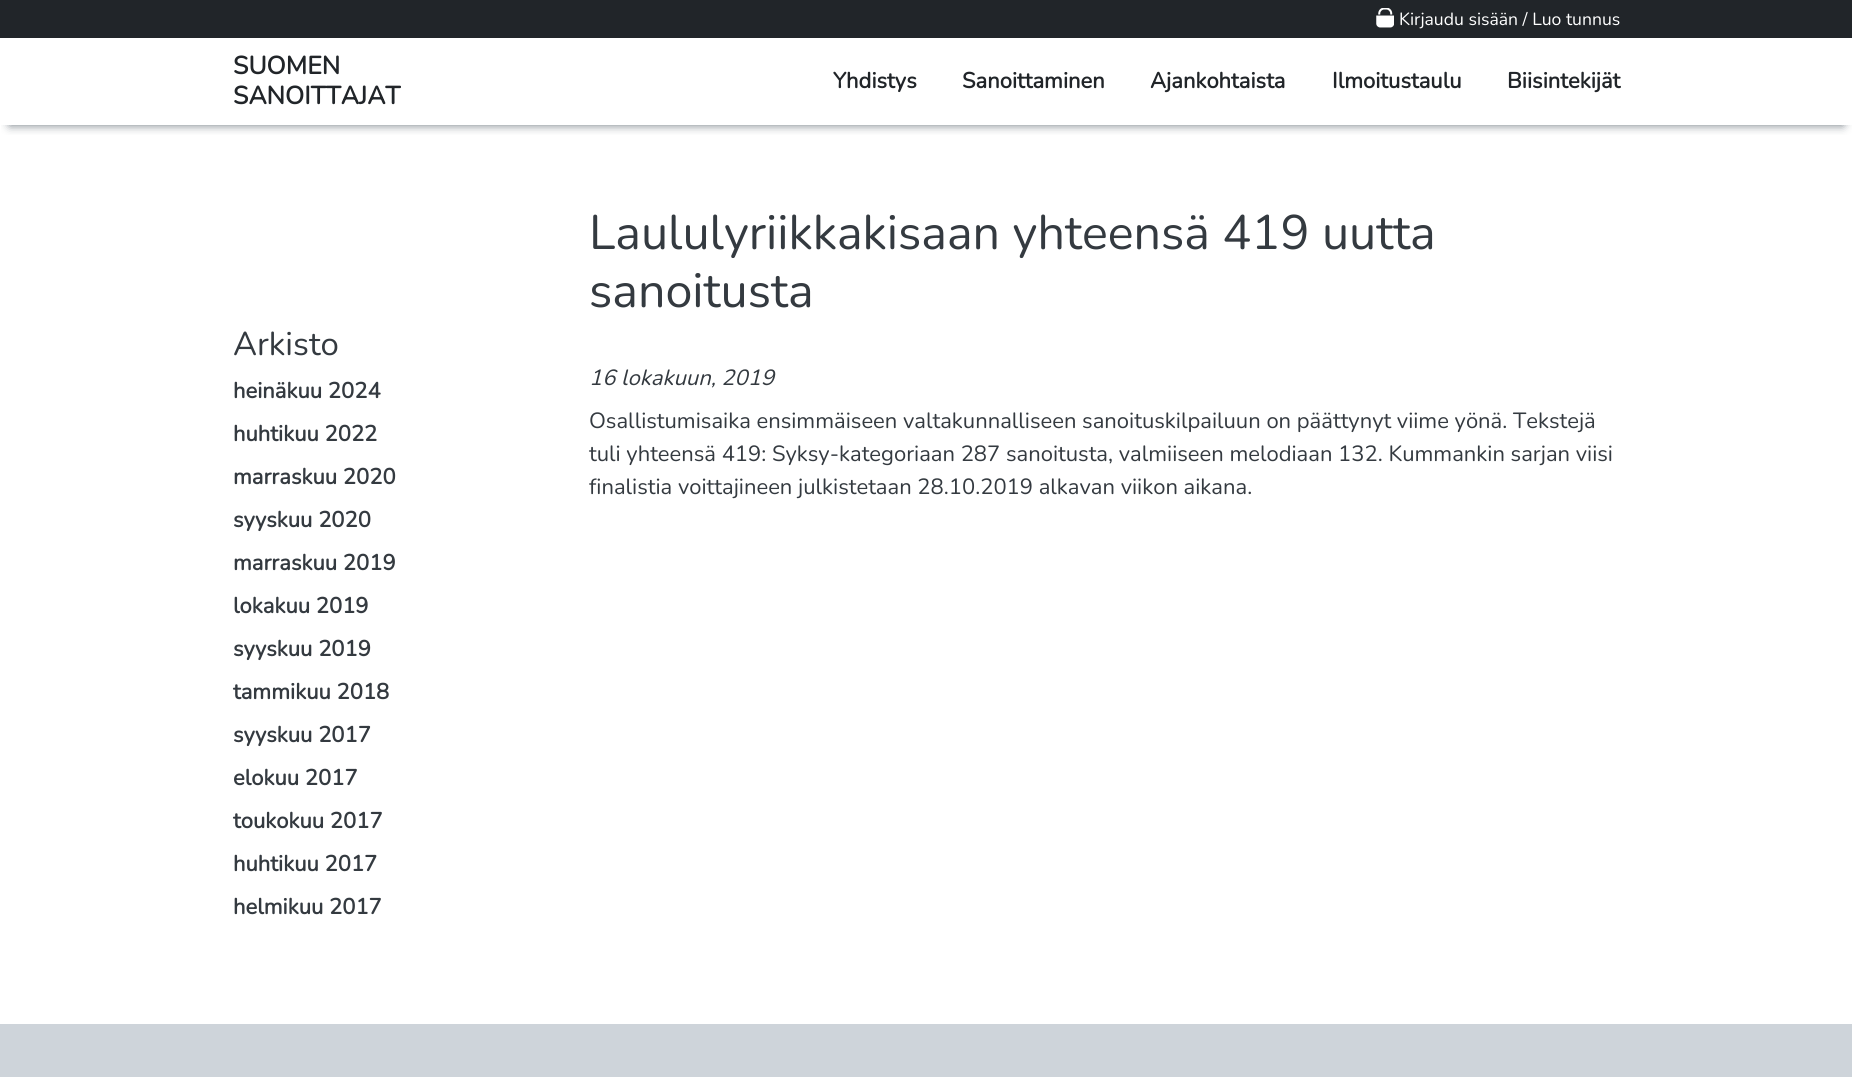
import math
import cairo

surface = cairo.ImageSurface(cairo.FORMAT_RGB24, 1852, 1077)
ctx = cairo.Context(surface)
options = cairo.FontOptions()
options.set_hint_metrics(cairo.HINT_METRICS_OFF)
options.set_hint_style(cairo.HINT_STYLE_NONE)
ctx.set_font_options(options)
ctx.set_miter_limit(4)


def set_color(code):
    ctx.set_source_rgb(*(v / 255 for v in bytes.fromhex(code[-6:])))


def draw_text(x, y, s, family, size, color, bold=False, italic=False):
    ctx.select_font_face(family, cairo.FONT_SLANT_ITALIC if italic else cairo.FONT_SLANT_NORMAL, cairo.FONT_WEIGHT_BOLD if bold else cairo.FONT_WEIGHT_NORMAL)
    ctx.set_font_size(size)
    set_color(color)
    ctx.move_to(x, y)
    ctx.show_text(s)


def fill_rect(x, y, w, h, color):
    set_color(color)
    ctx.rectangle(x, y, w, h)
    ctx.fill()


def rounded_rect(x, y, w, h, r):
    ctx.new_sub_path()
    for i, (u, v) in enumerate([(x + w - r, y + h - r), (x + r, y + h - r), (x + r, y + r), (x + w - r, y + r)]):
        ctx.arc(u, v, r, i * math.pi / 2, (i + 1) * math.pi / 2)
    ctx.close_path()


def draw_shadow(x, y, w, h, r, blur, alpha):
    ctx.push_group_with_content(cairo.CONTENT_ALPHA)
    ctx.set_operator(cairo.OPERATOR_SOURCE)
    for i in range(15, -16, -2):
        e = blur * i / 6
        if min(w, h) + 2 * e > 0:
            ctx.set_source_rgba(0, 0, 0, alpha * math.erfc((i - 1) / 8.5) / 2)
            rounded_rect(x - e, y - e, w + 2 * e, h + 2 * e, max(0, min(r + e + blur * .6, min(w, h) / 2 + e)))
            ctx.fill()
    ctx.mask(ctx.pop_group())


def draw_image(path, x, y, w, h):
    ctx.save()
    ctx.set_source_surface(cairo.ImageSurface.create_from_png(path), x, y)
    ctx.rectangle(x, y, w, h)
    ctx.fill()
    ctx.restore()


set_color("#ffffff")
ctx.paint()
fill_rect(0, 0, 1852, 38, "#212529")
draw_image("assets/img1.png", 1376, 8, 18, 20)
draw_text(1399, 25, "Kirjaudu sisään / Luo tunnus", "Nunito ExtraLight", 17.6, "#ffffff")
ctx.save()
ctx.rectangle(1, 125, 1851, 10)
ctx.clip()
set_color("#6c757d")
draw_shadow(10, 58, 1833, 67, 0, 5, 1)
ctx.restore()
draw_text(233, 74, "SUOMEN", "Nunito", 25, "#212529", bold=True)
draw_text(233, 104, "SANOITTAJAT", "Nunito", 25, "#212529", bold=True)
draw_text(833, 88, "Yhdistys", "Nunito", 22, "#212529", bold=True)
draw_text(962, 88, "Sanoittaminen", "Nunito", 22, "#212529", bold=True)
draw_text(1150, 88, "Ajankohtaista", "Nunito", 22, "#212529", bold=True)
draw_text(1332, 88, "Ilmoitustaulu", "Nunito", 22, "#212529", bold=True)
draw_text(1507, 88, "Biisintekijät", "Nunito", 22, "#212529", bold=True)
draw_text(233, 355, "Arkisto", "Nunito ExtraLight", 33, "#343a40")
draw_text(233, 398, "heinäkuu 2024", "Nunito", 22, "#343a40", bold=True)
draw_text(233, 441, "huhtikuu 2022", "Nunito", 22, "#343a40", bold=True)
draw_text(233, 484, "marraskuu 2020", "Nunito", 22, "#343a40", bold=True)
draw_text(233, 527, "syyskuu 2020", "Nunito", 22, "#343a40", bold=True)
draw_text(233, 570, "marraskuu 2019", "Nunito", 22, "#343a40", bold=True)
draw_text(233, 613, "lokakuu 2019", "Nunito", 22, "#343a40", bold=True)
draw_text(233, 656, "syyskuu 2019", "Nunito", 22, "#343a40", bold=True)
draw_text(233, 699, "tammikuu 2018", "Nunito", 22, "#343a40", bold=True)
draw_text(233, 742, "syyskuu 2017", "Nunito", 22, "#343a40", bold=True)
draw_text(233, 785, "elokuu 2017", "Nunito", 22, "#343a40", bold=True)
draw_text(233, 828, "toukokuu 2017", "Nunito", 22, "#343a40", bold=True)
draw_text(233, 871, "huhtikuu 2017", "Nunito", 22, "#343a40", bold=True)
draw_text(233, 914, "helmikuu 2017", "Nunito", 22, "#343a40", bold=True)
draw_text(589, 249, "Laululyriikkakisaan yhteensä 419 uutta", "Nunito ExtraLight", 48.4, "#343a40")
draw_text(589, 307, "sanoitusta", "Nunito ExtraLight", 48.4, "#343a40")
draw_text(589, 385, "16 lokakuun, 2019", "Nunito ExtraLight", 22, "#343a40", italic=True)
draw_text(589, 428, "Osallistumisaika ensimmäiseen valtakunnalliseen sanoituskilpailuun on päättynyt viime yönä. Tekstejä", "Nunito ExtraLight", 22, "#343a40")
draw_text(589, 461, "tuli yhteensä 419: Syksy-kategoriaan 287 sanoitusta, valmiiseen melodiaan 132. Kummankin sarjan viisi", "Nunito ExtraLight", 22, "#343a40")
draw_text(589, 494, "finalistia voittajineen julkistetaan 28.10.2019 alkavan viikon aikana.", "Nunito ExtraLight", 22, "#343a40")
fill_rect(0, 1024, 1852, 53, "#ced4da")
surface.write_to_png("output.png")
